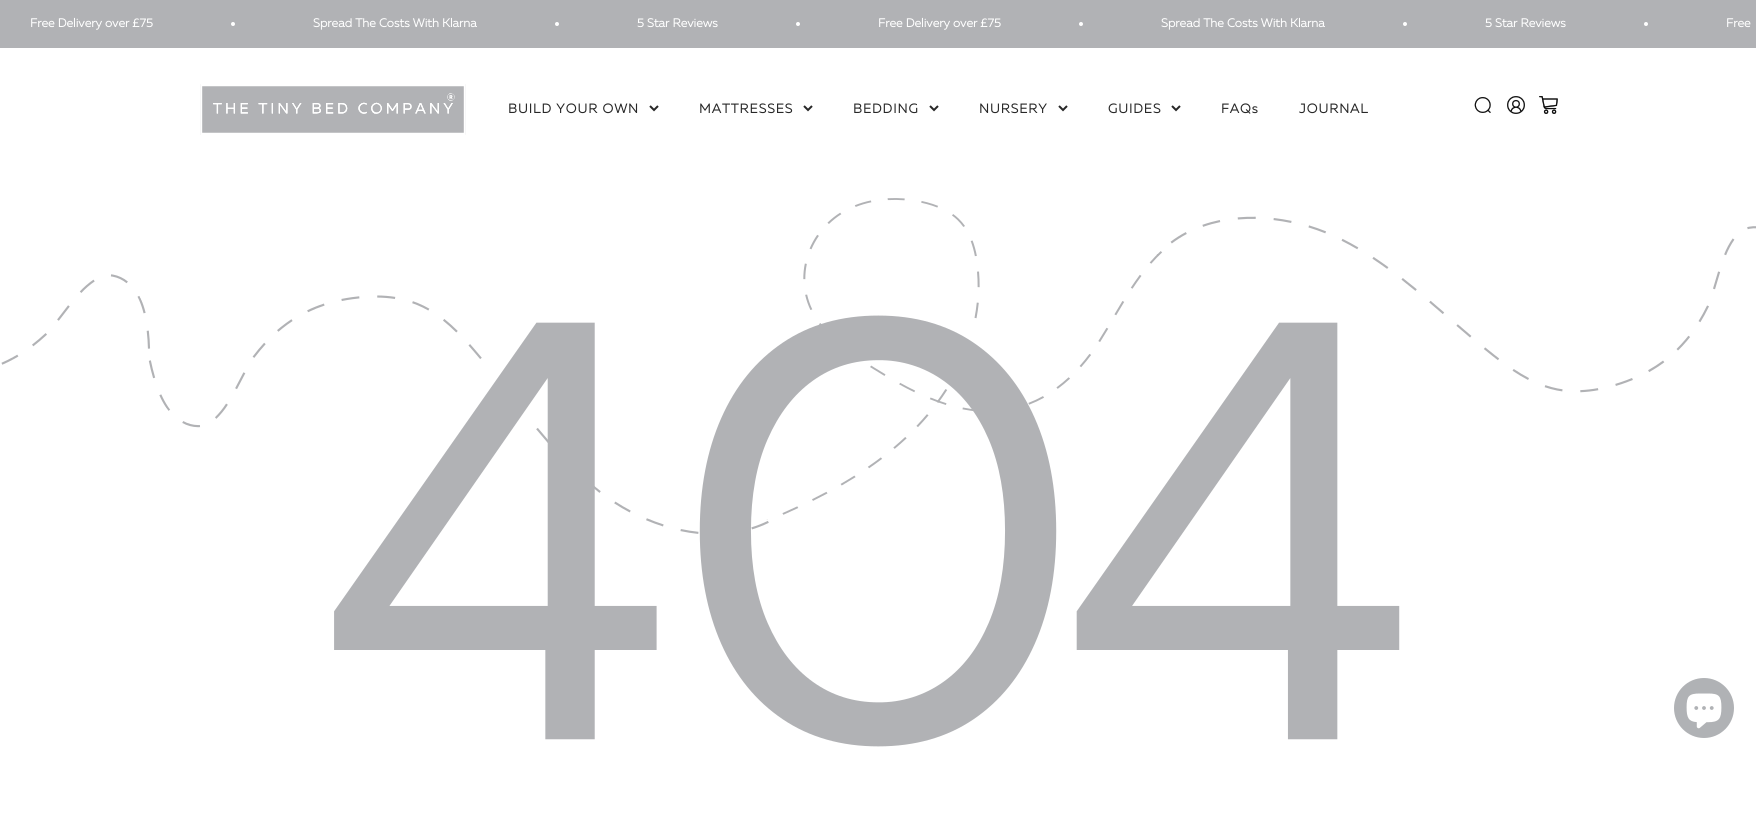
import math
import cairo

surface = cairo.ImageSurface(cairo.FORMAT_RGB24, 1756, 823)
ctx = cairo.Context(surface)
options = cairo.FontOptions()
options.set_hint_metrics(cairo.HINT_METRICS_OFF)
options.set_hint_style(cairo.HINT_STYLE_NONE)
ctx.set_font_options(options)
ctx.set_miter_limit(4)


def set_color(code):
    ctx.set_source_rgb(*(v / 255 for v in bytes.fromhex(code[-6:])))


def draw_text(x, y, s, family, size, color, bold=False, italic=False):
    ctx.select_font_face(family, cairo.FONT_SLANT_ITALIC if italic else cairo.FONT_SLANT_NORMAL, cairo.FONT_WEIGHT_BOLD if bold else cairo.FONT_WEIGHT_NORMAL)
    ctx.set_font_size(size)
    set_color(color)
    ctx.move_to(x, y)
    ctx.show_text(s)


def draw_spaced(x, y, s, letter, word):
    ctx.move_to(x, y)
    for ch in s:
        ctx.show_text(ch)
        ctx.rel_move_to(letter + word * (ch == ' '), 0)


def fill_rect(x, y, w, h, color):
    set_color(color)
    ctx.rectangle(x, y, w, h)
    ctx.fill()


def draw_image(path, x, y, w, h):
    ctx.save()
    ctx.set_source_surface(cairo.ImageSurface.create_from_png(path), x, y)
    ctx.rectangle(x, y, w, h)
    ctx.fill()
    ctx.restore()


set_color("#ffffff")
ctx.paint()
fill_rect(0, 0, 1756, 48, "#b1b2b5")
draw_text(30, 27, "Free Delivery over £75", "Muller", 12, "#ffffff", bold=True)
ctx.new_path()
ctx.arc(233, 24, 2, 0, 2 * math.pi)
ctx.fill()
draw_text(313, 27, "Spread The Costs With Klarna", "Muller", 12, "#ffffff", bold=True)
ctx.new_path()
ctx.arc(557, 24, 2, 0, 2 * math.pi)
ctx.fill()
draw_text(637, 27, "5 Star Reviews", "Muller", 12, "#ffffff", bold=True)
ctx.new_path()
ctx.arc(798, 24, 2, 0, 2 * math.pi)
ctx.fill()
draw_text(878, 27, "Free Delivery over £75", "Muller", 12, "#ffffff", bold=True)
ctx.new_path()
ctx.arc(1081, 24, 2, 0, 2 * math.pi)
ctx.fill()
draw_text(1161, 27, "Spread The Costs With Klarna", "Muller", 12, "#ffffff", bold=True)
ctx.new_path()
ctx.arc(1405, 24, 2, 0, 2 * math.pi)
ctx.fill()
draw_text(1485, 27, "5 Star Reviews", "Muller", 12, "#ffffff", bold=True)
ctx.new_path()
ctx.arc(1646, 24, 2, 0, 2 * math.pi)
ctx.fill()
draw_text(1726, 27, "Free", "Muller", 12, "#ffffff", bold=True)
draw_image("assets/img1.png", 200, 84, 266, 51)
ctx.set_font_size(13)
set_color("#272727")
draw_spaced(508, 113, "BUILD YOUR OWN", 1, 0)
ctx.new_path()
ctx.move_to(650, 106)
ctx.line_to(654, 110)
ctx.line_to(658, 106)
ctx.stroke()
draw_spaced(699, 113, "MATTRESSES", 1, 0)
ctx.new_path()
ctx.move_to(804, 106)
ctx.line_to(808, 110)
ctx.line_to(812, 106)
ctx.stroke()
draw_spaced(853, 113, "BEDDING", 1, 0)
ctx.new_path()
ctx.move_to(930, 106)
ctx.line_to(934, 110)
ctx.line_to(938, 106)
ctx.stroke()
draw_spaced(979, 113, "NURSERY", 1, 0)
ctx.new_path()
ctx.move_to(1059, 106)
ctx.line_to(1063, 110)
ctx.line_to(1067, 106)
ctx.stroke()
draw_spaced(1108, 113, "GUIDES", 1, 0)
ctx.new_path()
ctx.move_to(1172, 106)
ctx.line_to(1176, 110)
ctx.line_to(1180, 106)
ctx.stroke()
draw_spaced(1221, 113, "FAQs", 1, 0)
draw_spaced(1299, 113, "JOURNAL", 1, 0)
draw_image("assets/img2.png", 1474, 97, 17, 16)
draw_image("assets/img3.png", 1507, 96, 18, 18)
draw_image("assets/img4.png", 1539, 96, 19, 18)
draw_image("assets/img5.png", 1, 198, 1755, 549)
set_color("#b0b2b5")
ctx.arc(1704, 708, 30, 0, 2 * math.pi)
ctx.fill()
draw_image("assets/img6.png", 1686, 693, 36, 36)
surface.write_to_png("output.png")
